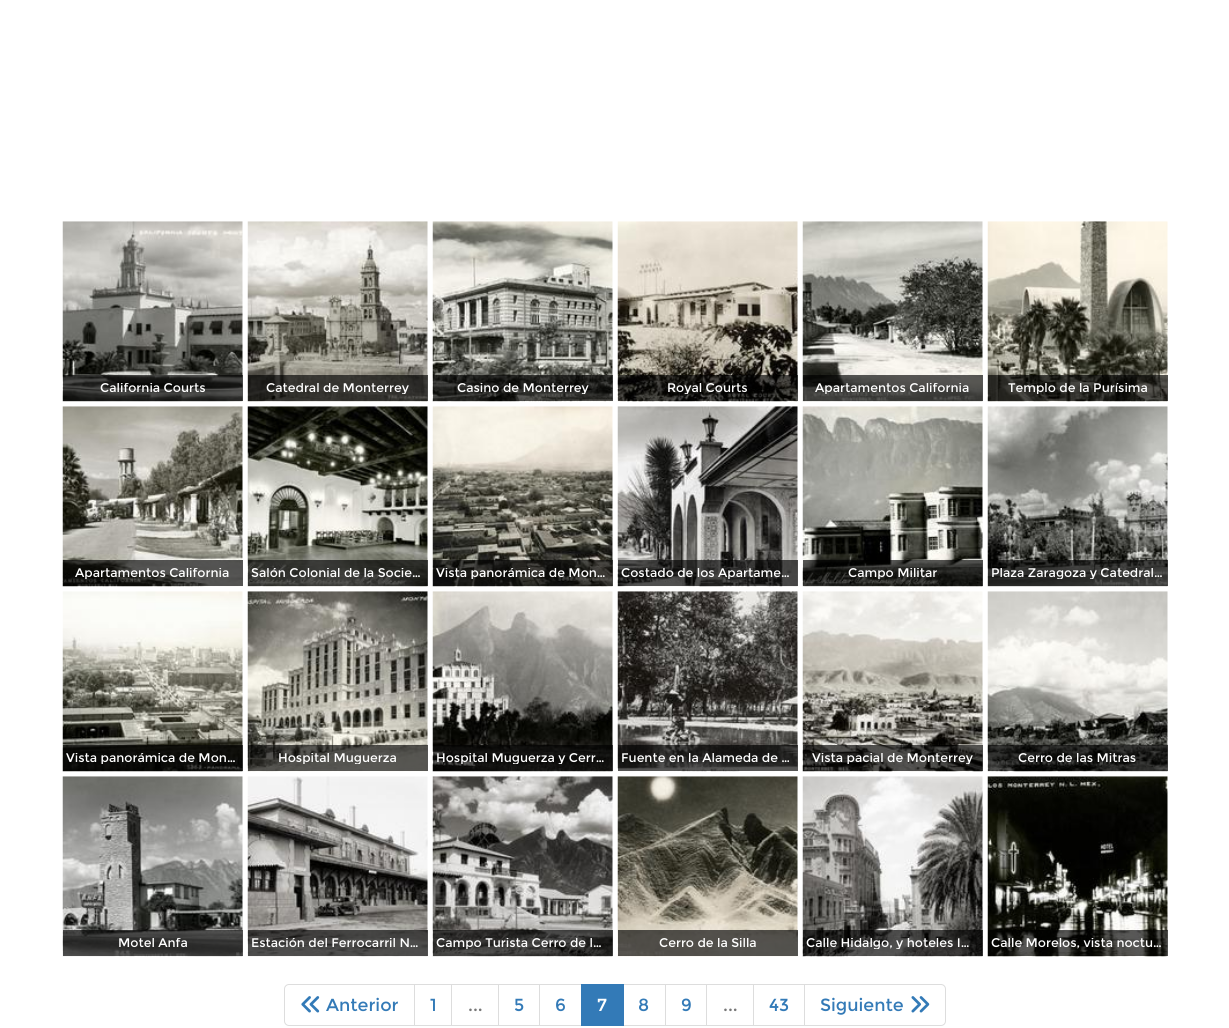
import math
import cairo

surface = cairo.ImageSurface(cairo.FORMAT_RGB24, 1229, 1028)
ctx = cairo.Context(surface)
options = cairo.FontOptions()
options.set_hint_metrics(cairo.HINT_METRICS_OFF)
options.set_hint_style(cairo.HINT_STYLE_NONE)
ctx.set_font_options(options)
ctx.set_miter_limit(4)


def set_color(code):
    ctx.set_source_rgb(*(v / 255 for v in bytes.fromhex(code[-6:])))


def draw_text(x, y, s, family, size, color, bold=False, italic=False):
    ctx.select_font_face(family, cairo.FONT_SLANT_ITALIC if italic else cairo.FONT_SLANT_NORMAL, cairo.FONT_WEIGHT_BOLD if bold else cairo.FONT_WEIGHT_NORMAL)
    ctx.set_font_size(size)
    set_color(color)
    ctx.move_to(x, y)
    ctx.show_text(s)


def fill_rect(x, y, w, h, color):
    set_color(color)
    ctx.rectangle(x, y, w, h)
    ctx.fill()


def draw_image(path, x, y, w, h):
    ctx.save()
    ctx.set_source_surface(cairo.ImageSurface.create_from_png(path), x, y)
    ctx.rectangle(x, y, w, h)
    ctx.fill()
    ctx.restore()


set_color("#ffffff")
ctx.paint()
draw_image("assets/img1.png", 62, 221, 181, 181)
ctx.set_source_rgba(0, 0, 0, 0.65)
ctx.rectangle(63, 375, 180, 26)
ctx.fill()
ctx.save()
ctx.rectangle(66, 383, 173, 11)
ctx.clip()
draw_text(100, 392, "California Courts", "Montserrat", 12.5, "#ffffff")
ctx.restore()
draw_image("assets/img2.png", 247, 221, 181, 181)
ctx.rectangle(248, 375, 180, 26)
ctx.fill()
ctx.save()
ctx.rectangle(251, 383, 173, 11)
ctx.clip()
draw_text(266, 392, "Catedral de Monterrey", "Montserrat", 12.5, "#ffffff")
ctx.restore()
draw_image("assets/img3.png", 432, 221, 181, 181)
ctx.rectangle(433, 375, 180, 26)
ctx.fill()
ctx.save()
ctx.rectangle(436, 383, 173, 11)
ctx.clip()
draw_text(457, 392, "Casino de Monterrey", "Montserrat", 12.5, "#ffffff")
ctx.restore()
draw_image("assets/img4.png", 617, 221, 181, 181)
ctx.rectangle(618, 375, 180, 26)
ctx.fill()
ctx.save()
ctx.rectangle(621, 383, 173, 11)
ctx.clip()
draw_text(667, 392, "Royal Courts", "Montserrat", 12.5, "#ffffff")
ctx.restore()
draw_image("assets/img5.png", 802, 221, 181, 181)
ctx.rectangle(803, 375, 180, 26)
ctx.fill()
ctx.save()
ctx.rectangle(806, 383, 173, 11)
ctx.clip()
draw_text(815, 392, "Apartamentos California", "Montserrat", 12.5, "#ffffff")
ctx.restore()
draw_image("assets/img6.png", 987, 221, 181, 181)
ctx.rectangle(988, 375, 180, 26)
ctx.fill()
ctx.save()
ctx.rectangle(991, 383, 173, 11)
ctx.clip()
draw_text(1008, 392, "Templo de la Purísima", "Montserrat", 12.5, "#ffffff")
ctx.restore()
draw_image("assets/img7.png", 62, 406, 181, 181)
ctx.rectangle(63, 560, 180, 26)
ctx.fill()
ctx.save()
ctx.rectangle(66, 568, 173, 11)
ctx.clip()
draw_text(75, 577, "Apartamentos California", "Montserrat", 12.5, "#ffffff")
ctx.restore()
draw_image("assets/img8.png", 247, 406, 181, 181)
ctx.rectangle(248, 560, 180, 26)
ctx.fill()
ctx.save()
ctx.rectangle(251, 568, 173, 11)
ctx.clip()
draw_text(251, 577, "Salón Colonial de la Socie…", "Montserrat", 12.5, "#ffffff")
ctx.restore()
draw_image("assets/img9.png", 432, 406, 181, 181)
ctx.rectangle(433, 560, 180, 26)
ctx.fill()
ctx.save()
ctx.rectangle(436, 568, 173, 11)
ctx.clip()
draw_text(436, 577, "Vista panorámica de Mon…", "Montserrat", 12.5, "#ffffff")
ctx.restore()
draw_image("assets/img10.png", 617, 406, 181, 181)
ctx.rectangle(618, 560, 180, 26)
ctx.fill()
ctx.save()
ctx.rectangle(621, 568, 173, 11)
ctx.clip()
draw_text(621, 577, "Costado de los Apartame…", "Montserrat", 12.5, "#ffffff")
ctx.restore()
draw_image("assets/img11.png", 802, 406, 181, 181)
ctx.rectangle(803, 560, 180, 26)
ctx.fill()
ctx.save()
ctx.rectangle(806, 568, 173, 11)
ctx.clip()
draw_text(848, 577, "Campo Militar", "Montserrat", 12.5, "#ffffff")
ctx.restore()
draw_image("assets/img12.png", 987, 406, 181, 181)
ctx.rectangle(988, 560, 180, 26)
ctx.fill()
ctx.save()
ctx.rectangle(991, 568, 173, 11)
ctx.clip()
draw_text(991, 577, "Plaza Zaragoza y Catedral…", "Montserrat", 12.5, "#ffffff")
ctx.restore()
draw_image("assets/img13.png", 62, 591, 181, 181)
ctx.rectangle(63, 745, 180, 26)
ctx.fill()
ctx.save()
ctx.rectangle(66, 753, 173, 11)
ctx.clip()
draw_text(66, 762, "Vista panorámica de Mon…", "Montserrat", 12.5, "#ffffff")
ctx.restore()
draw_image("assets/img14.png", 247, 591, 181, 181)
ctx.rectangle(248, 745, 180, 26)
ctx.fill()
ctx.save()
ctx.rectangle(251, 753, 173, 11)
ctx.clip()
draw_text(278, 762, "Hospital Muguerza", "Montserrat", 12.5, "#ffffff")
ctx.restore()
draw_image("assets/img15.png", 432, 591, 181, 181)
ctx.rectangle(433, 745, 180, 26)
ctx.fill()
ctx.save()
ctx.rectangle(436, 753, 173, 11)
ctx.clip()
draw_text(436, 762, "Hospital Muguerza y Cerr…", "Montserrat", 12.5, "#ffffff")
ctx.restore()
draw_image("assets/img16.png", 617, 591, 181, 181)
ctx.rectangle(618, 745, 180, 26)
ctx.fill()
ctx.save()
ctx.rectangle(621, 753, 173, 11)
ctx.clip()
draw_text(621, 762, "Fuente en la Alameda de …", "Montserrat", 12.5, "#ffffff")
ctx.restore()
draw_image("assets/img17.png", 802, 591, 181, 181)
ctx.rectangle(803, 745, 180, 26)
ctx.fill()
ctx.save()
ctx.rectangle(806, 753, 173, 11)
ctx.clip()
draw_text(812, 762, "Vista pacial de Monterrey", "Montserrat", 12.5, "#ffffff")
ctx.restore()
draw_image("assets/img18.png", 987, 591, 181, 181)
ctx.rectangle(988, 745, 180, 26)
ctx.fill()
ctx.save()
ctx.rectangle(991, 753, 173, 11)
ctx.clip()
draw_text(1018, 762, "Cerro de las Mitras", "Montserrat", 12.5, "#ffffff")
ctx.restore()
draw_image("assets/img19.png", 62, 776, 181, 181)
ctx.rectangle(63, 930, 180, 26)
ctx.fill()
ctx.save()
ctx.rectangle(66, 938, 173, 11)
ctx.clip()
draw_text(118, 947, "Motel Anfa", "Montserrat", 12.5, "#ffffff")
ctx.restore()
draw_image("assets/img20.png", 247, 776, 181, 181)
ctx.rectangle(248, 930, 180, 26)
ctx.fill()
ctx.save()
ctx.rectangle(251, 938, 173, 11)
ctx.clip()
draw_text(251, 947, "Estación del Ferrocarril N…", "Montserrat", 12.5, "#ffffff")
ctx.restore()
draw_image("assets/img21.png", 432, 776, 181, 181)
ctx.rectangle(433, 930, 180, 26)
ctx.fill()
ctx.save()
ctx.rectangle(436, 938, 173, 11)
ctx.clip()
draw_text(436, 947, "Campo Turista Cerro de l…", "Montserrat", 12.5, "#ffffff")
ctx.restore()
draw_image("assets/img22.png", 617, 776, 181, 181)
ctx.rectangle(618, 930, 180, 26)
ctx.fill()
ctx.save()
ctx.rectangle(621, 938, 173, 11)
ctx.clip()
draw_text(659, 947, "Cerro de la Silla", "Montserrat", 12.5, "#ffffff")
ctx.restore()
draw_image("assets/img23.png", 802, 776, 181, 181)
ctx.rectangle(803, 930, 180, 26)
ctx.fill()
ctx.save()
ctx.rectangle(806, 938, 173, 11)
ctx.clip()
draw_text(806, 947, "Calle Hidalgo, y hoteles I…", "Montserrat", 12.5, "#ffffff")
ctx.restore()
draw_image("assets/img24.png", 987, 776, 181, 181)
ctx.rectangle(988, 930, 180, 26)
ctx.fill()
ctx.save()
ctx.rectangle(991, 938, 173, 11)
ctx.clip()
draw_text(991, 947, "Calle Morelos, vista noctu…", "Montserrat", 12.5, "#ffffff")
ctx.restore()
ctx.new_path()
ctx.move_to(289, 984.5)
ctx.line_to(414.5, 984.5)
ctx.line_to(414.5, 1025.5)
ctx.line_to(289, 1025.5)
ctx.curve_to(286.5, 1025.5, 284.5, 1023.5, 284.5, 1021)
ctx.line_to(284.5, 989)
ctx.curve_to(284.5, 986.5, 286.5, 984.5, 289, 984.5)
ctx.close_path()
set_color("#dddddd")
ctx.set_line_width(1)
ctx.stroke()
draw_image("assets/img25.png", 301, 996, 19, 17)
draw_text(326, 1011, "Anterior", "Montserrat", 17.5, "#337ab7")
ctx.rectangle(414.5, 984.5, 38, 41)
set_color("#dddddd")
ctx.stroke()
draw_text(430, 1011, "1", "Montserrat", 17.5, "#337ab7")
fill_rect(452, 985, 1, 40, "#ffffff")
ctx.rectangle(451.5, 984.5, 47, 41)
set_color("#dddddd")
ctx.stroke()
draw_text(468, 1011, "...", "Montserrat", 17.5, "#777777")
ctx.rectangle(498.5, 984.5, 41, 41)
set_color("#dddddd")
ctx.stroke()
draw_text(514, 1011, "5", "Montserrat", 17.5, "#337ab7")
ctx.rectangle(539.5, 984.5, 43, 41)
set_color("#dddddd")
ctx.stroke()
draw_text(555, 1011, "6", "Montserrat", 17.5, "#337ab7")
ctx.rectangle(623.5, 984.5, 42, 41)
set_color("#dddddd")
ctx.stroke()
fill_rect(581, 984, 43, 42, "#337ab7")
draw_text(597, 1011, "7", "Montserrat", 17.5, "#ffffff")
draw_text(638, 1011, "8", "Montserrat", 17.5, "#337ab7")
ctx.rectangle(665.5, 984.5, 42, 41)
set_color("#dddddd")
ctx.stroke()
draw_text(681, 1011, "9", "Montserrat", 17.5, "#337ab7")
fill_rect(707, 985, 1, 40, "#ffffff")
ctx.rectangle(706.5, 984.5, 47, 41)
set_color("#dddddd")
ctx.stroke()
draw_text(723, 1011, "...", "Montserrat", 17.5, "#777777")
ctx.rectangle(753.5, 984.5, 51, 41)
set_color("#dddddd")
ctx.stroke()
draw_text(769, 1011, "43", "Montserrat", 17.5, "#337ab7")
set_color("#ffffff")
ctx.new_path()
ctx.move_to(804.5, 984.5)
ctx.line_to(941, 984.5)
ctx.curve_to(943.5, 984.5, 945.5, 986.5, 945.5, 989)
ctx.line_to(945.5, 1021)
ctx.curve_to(945.5, 1023.5, 943.5, 1025.5, 941, 1025.5)
ctx.line_to(804.5, 1025.5)
ctx.close_path()
ctx.fill_preserve()
set_color("#dddddd")
ctx.stroke()
draw_text(820, 1011, "Siguiente", "Montserrat", 17.5, "#337ab7")
draw_image("assets/img26.png", 911, 996, 19, 17)
surface.write_to_png("output.png")
